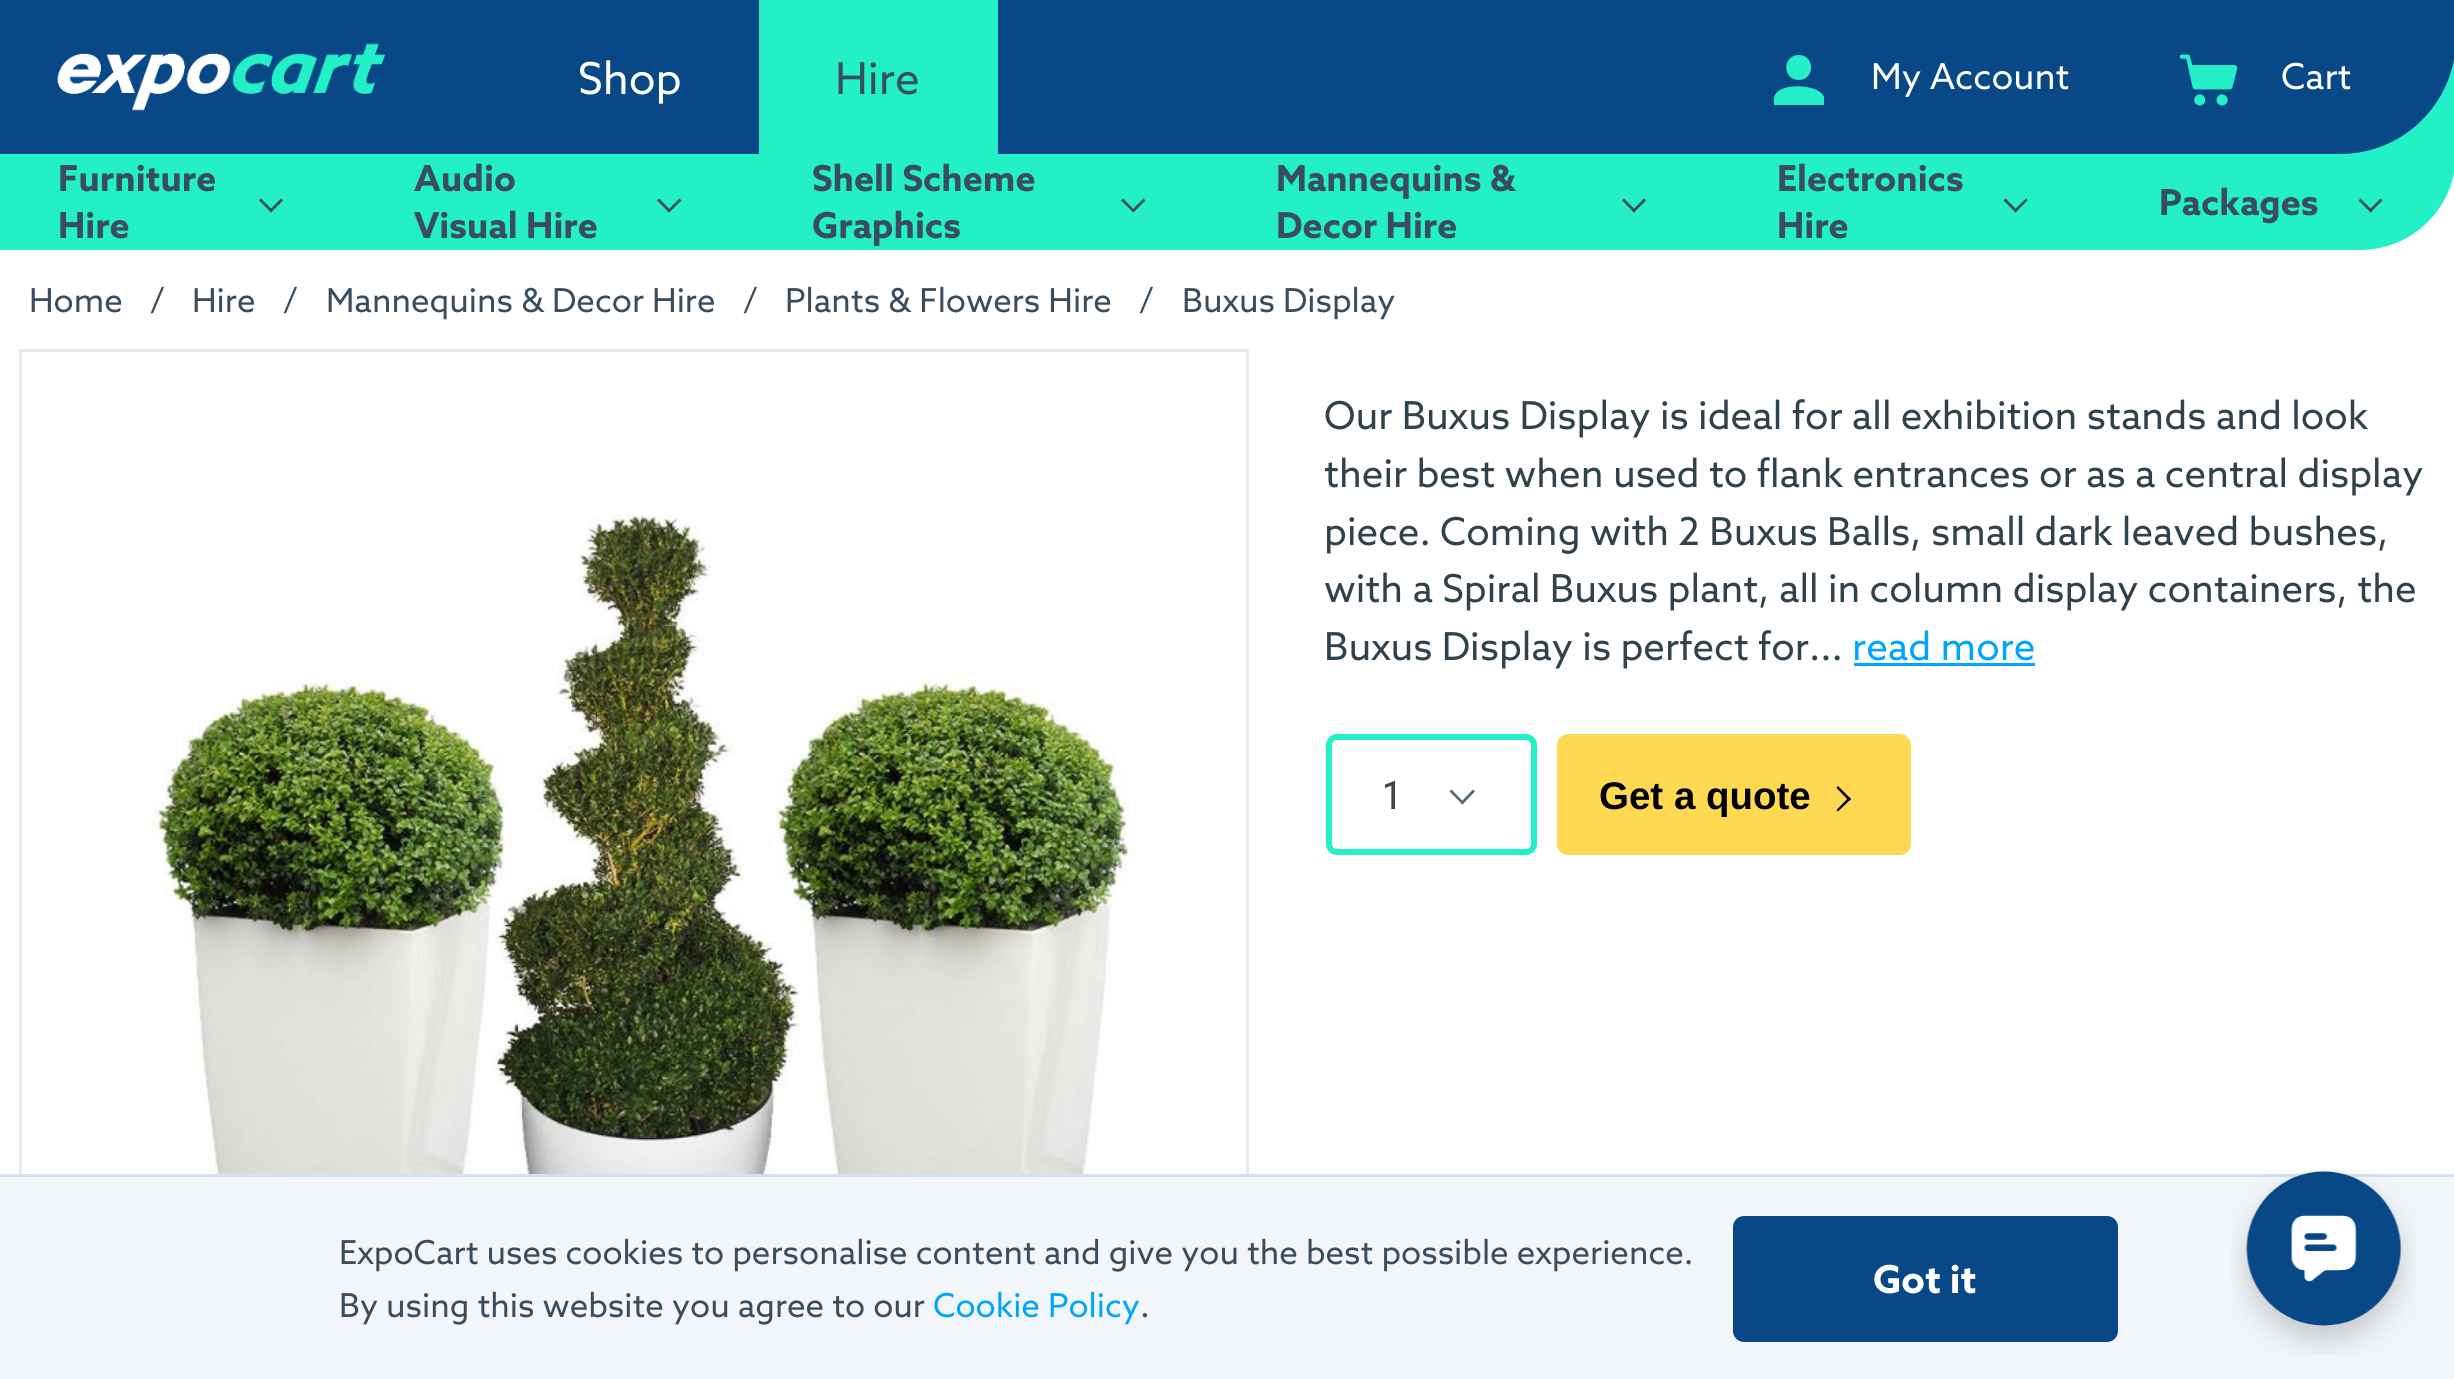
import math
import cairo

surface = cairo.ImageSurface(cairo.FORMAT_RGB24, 2454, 1379)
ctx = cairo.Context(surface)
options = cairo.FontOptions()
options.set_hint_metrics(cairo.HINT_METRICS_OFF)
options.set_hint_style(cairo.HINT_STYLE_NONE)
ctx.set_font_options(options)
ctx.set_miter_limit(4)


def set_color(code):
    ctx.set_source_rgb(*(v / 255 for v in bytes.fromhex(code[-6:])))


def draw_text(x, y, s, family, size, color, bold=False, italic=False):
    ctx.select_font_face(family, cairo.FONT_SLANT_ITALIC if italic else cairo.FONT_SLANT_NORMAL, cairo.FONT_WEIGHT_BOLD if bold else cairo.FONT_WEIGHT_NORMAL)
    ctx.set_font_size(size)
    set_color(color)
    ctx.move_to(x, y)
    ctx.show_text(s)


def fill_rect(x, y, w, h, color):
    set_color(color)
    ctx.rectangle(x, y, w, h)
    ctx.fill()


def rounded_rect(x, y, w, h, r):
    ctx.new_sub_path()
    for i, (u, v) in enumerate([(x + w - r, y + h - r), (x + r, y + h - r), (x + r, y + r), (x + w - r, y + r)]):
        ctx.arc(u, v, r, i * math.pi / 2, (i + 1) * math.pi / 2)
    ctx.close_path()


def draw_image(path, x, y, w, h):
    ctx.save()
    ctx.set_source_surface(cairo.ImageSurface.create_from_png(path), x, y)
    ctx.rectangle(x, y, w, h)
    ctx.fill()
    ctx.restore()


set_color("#ffffff")
ctx.paint()
fill_rect(2341, 59, 113, 95, "#23f0c7")
set_color("#084887")
ctx.new_path()
ctx.move_to(0, 0)
ctx.line_to(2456, 0)
ctx.line_to(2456, 38)
ctx.curve_to(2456, 102, 2404, 154, 2340, 154)
ctx.line_to(0, 154)
ctx.close_path()
ctx.fill()
draw_image("assets/img1.png", 57, 43, 328, 68)
draw_text(578, 94, "Shop", "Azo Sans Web", 44, "#ffffff")
fill_rect(759, 0, 239, 154, "#23f0c7")
draw_text(835, 94, "Hire", "Azo Sans Web", 44, "#3a4d5e")
set_color("#23f0c7")
ctx.new_path()
ctx.move_to(1811, 88)
ctx.curve_to(1802, 85, 1780, 85, 1775, 95)
ctx.curve_to(1773, 98, 1774, 102, 1774, 105)
ctx.line_to(1824, 105)
ctx.line_to(1824, 97)
ctx.curve_to(1822, 92, 1816, 89, 1811, 88)
ctx.close_path()
ctx.move_to(1799, 55)
ctx.curve_to(1815, 55, 1815, 80, 1799, 80)
ctx.curve_to(1782, 80, 1782, 55, 1799, 55)
ctx.close_path()
ctx.fill()
draw_text(1871, 89, "My Account", "Azo Sans Web", 35.75, "#ffffff")
draw_image("assets/img2.png", 2179, 54, 59, 52)
draw_text(2281, 89, "Cart", "Azo Sans Web", 35.75, "#ffffff")
set_color("#23f0c7")
ctx.new_path()
ctx.move_to(0, 154)
ctx.line_to(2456, 154)
ctx.curve_to(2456, 207, 2413, 250, 2360, 250)
ctx.line_to(0, 250)
ctx.close_path()
ctx.fill()
draw_text(58, 191, "Furniture", "Azo Sans Web", 35.75, "#3a4d5e", bold=True)
ctx.new_path()
ctx.move_to(283, 200.5)
ctx.line_to(271, 212.5)
ctx.line_to(269, 210.5)
ctx.line_to(281, 198.5)
ctx.close_path()
ctx.fill()
ctx.new_path()
ctx.move_to(273, 210.5)
ctx.line_to(271, 212.5)
ctx.line_to(259, 200.5)
ctx.line_to(261, 198.5)
ctx.close_path()
ctx.fill()
draw_text(58, 238, "Hire", "Azo Sans Web", 35.75, "#3a4d5e", bold=True)
draw_text(414, 191, "Audio", "Azo Sans Web", 35.75, "#3a4d5e", bold=True)
ctx.new_path()
ctx.move_to(681.5, 200.5)
ctx.line_to(669, 212.5)
ctx.line_to(667.5, 210.5)
ctx.line_to(679.5, 198.5)
ctx.close_path()
ctx.fill()
ctx.new_path()
ctx.move_to(671, 210.5)
ctx.line_to(669, 212.5)
ctx.line_to(657, 200.5)
ctx.line_to(659, 198.5)
ctx.close_path()
ctx.fill()
draw_text(414, 238, "Visual Hire", "Azo Sans Web", 35.75, "#3a4d5e", bold=True)
draw_text(812, 191, "Shell Scheme", "Azo Sans Web", 35.75, "#3a4d5e", bold=True)
ctx.new_path()
ctx.move_to(1145.5, 200.5)
ctx.line_to(1133.5, 212.5)
ctx.line_to(1131.5, 210.5)
ctx.line_to(1143.5, 198.5)
ctx.close_path()
ctx.fill()
ctx.new_path()
ctx.move_to(1135, 210.5)
ctx.line_to(1133.5, 212.5)
ctx.line_to(1121, 200.5)
ctx.line_to(1123, 198.5)
ctx.close_path()
ctx.fill()
draw_text(812, 238, "Graphics", "Azo Sans Web", 35.75, "#3a4d5e", bold=True)
draw_text(1276, 191, "Mannequins &", "Azo Sans Web", 35.75, "#3a4d5e", bold=True)
ctx.new_path()
ctx.move_to(1646, 200.5)
ctx.line_to(1634, 212.5)
ctx.line_to(1632, 210.5)
ctx.line_to(1644, 198.5)
ctx.close_path()
ctx.fill()
ctx.new_path()
ctx.move_to(1636, 210.5)
ctx.line_to(1634, 212.5)
ctx.line_to(1622, 200.5)
ctx.line_to(1624, 198.5)
ctx.close_path()
ctx.fill()
draw_text(1276, 238, "Decor Hire", "Azo Sans Web", 35.75, "#3a4d5e", bold=True)
draw_text(1777, 191, "Electronics", "Azo Sans Web", 35.75, "#3a4d5e", bold=True)
ctx.new_path()
ctx.move_to(2027.5, 200.5)
ctx.line_to(2015.5, 212.5)
ctx.line_to(2013.5, 210.5)
ctx.line_to(2026, 198.5)
ctx.close_path()
ctx.fill()
ctx.new_path()
ctx.move_to(2017.5, 210.5)
ctx.line_to(2015.5, 212.5)
ctx.line_to(2003.5, 200.5)
ctx.line_to(2005.5, 198.5)
ctx.close_path()
ctx.fill()
draw_text(1777, 238, "Hire", "Azo Sans Web", 35.75, "#3a4d5e", bold=True)
draw_text(2159, 215, "Packages", "Azo Sans Web", 35.75, "#3a4d5e", bold=True)
ctx.new_path()
ctx.move_to(2382.5, 200.5)
ctx.line_to(2370.5, 212.5)
ctx.line_to(2368.5, 210.5)
ctx.line_to(2380.5, 198.5)
ctx.close_path()
ctx.fill()
ctx.new_path()
ctx.move_to(2372.5, 210.5)
ctx.line_to(2370.5, 212.5)
ctx.line_to(2358.5, 200.5)
ctx.line_to(2360.5, 198.5)
ctx.close_path()
ctx.fill()
draw_text(29, 312, "Home", "Azo Sans Web", 33, "#3a4d5e")
draw_text(150, 312, "/", "Azo Sans Web", 33, "#3a4d5e")
draw_text(192, 312, "Hire", "Azo Sans Web", 33, "#3a4d5e")
draw_text(283, 312, "/", "Azo Sans Web", 33, "#3a4d5e")
draw_text(326, 312, "Mannequins & Decor Hire", "Azo Sans Web", 33, "#3a4d5e")
draw_text(743, 312, "/", "Azo Sans Web", 33, "#3a4d5e")
draw_text(785, 312, "Plants & Flowers Hire", "Azo Sans Web", 33, "#3a4d5e")
draw_text(1139, 312, "/", "Azo Sans Web", 33, "#3a4d5e")
draw_text(1182, 312, "Buxus Display", "Azo Sans Web", 33, "#3a4d5e")
ctx.rectangle(20.5, 350.5, 1227, 1026)
set_color("#e4eaf0")
ctx.set_line_width(3)
ctx.stroke()
draw_image("assets/img3.png", 145, 515, 999, 659)
draw_text(1324, 429, "Our Buxus Display is ideal for all exhibition stands and look", "Azo Sans Web", 38.5, "#30424b")
draw_text(1324, 487, "their best when used to flank entrances or as a central display", "Azo Sans Web", 38.5, "#30424b")
draw_text(1324, 545, "piece. Coming with 2 Buxus Balls, small dark leaved bushes,", "Azo Sans Web", 38.5, "#30424b")
draw_text(1324, 602, "with a Spiral Buxus plant, all in column display containers, the", "Azo Sans Web", 38.5, "#30424b")
draw_text(1324, 660, "Buxus Display is perfect for...", "Azo Sans Web", 38.5, "#30424b")
draw_text(1852, 660, "read more", "Azo Sans Web", 38.5, "#00a6fb")
fill_rect(1854, 663, 181, 3, "#00a6fb")
rounded_rect(1329, 737, 205, 115, 8)
set_color("#23f0c7")
ctx.set_line_width(6)
ctx.stroke()
draw_text(1382, 809, "1", "Azo Sans Web", 38.5, "#444444")
set_color("#586772")
ctx.new_path()
ctx.move_to(1475, 791.5)
ctx.line_to(1462.5, 804.5)
ctx.line_to(1460.5, 802.5)
ctx.line_to(1473, 789.5)
ctx.close_path()
ctx.fill()
ctx.new_path()
ctx.move_to(1464, 802.5)
ctx.line_to(1462.5, 804.5)
ctx.line_to(1449.5, 791.5)
ctx.line_to(1451.5, 789.5)
ctx.close_path()
ctx.fill()
set_color("#ffd952")
rounded_rect(1557, 734, 354, 121, 11)
ctx.fill()
draw_text(1599, 809, "Get a quote", "Liberation Sans", 38.5, "#000000", bold=True)
ctx.new_path()
ctx.move_to(1838, 786)
ctx.line_to(1851, 799)
ctx.line_to(1849, 801)
ctx.line_to(1836.5, 788)
ctx.close_path()
ctx.fill()
ctx.new_path()
ctx.move_to(1849, 797)
ctx.line_to(1851, 799)
ctx.line_to(1838, 811.5)
ctx.line_to(1836.5, 810)
ctx.close_path()
ctx.fill()
fill_rect(0, 1177, 2454, 202, "#f2f6fa")
fill_rect(0, 1174, 2454, 3, "#d4e2ef")
draw_text(339, 1264, "ExpoCart uses cookies to personalise content and give you the best possible experience.", "Azo Sans Web", 33, "#3a4d5e")
draw_text(339, 1317, "By using this website you agree to our", "Azo Sans Web", 33, "#3a4d5e")
draw_text(933, 1317, "Cookie Policy", "Azo Sans Web", 33, "#00a6fb")
draw_text(1140, 1317, ".", "Azo Sans Web", 33, "#3a4d5e")
set_color("#084887")
rounded_rect(1733, 1216, 385, 126, 11)
ctx.fill()
draw_text(1873, 1293, "Got it", "Azo Sans Web", 38.5, "#ffffff", bold=True)
draw_image("assets/img4.png", 2231, 1169, 185, 186)
surface.write_to_png("output.png")
